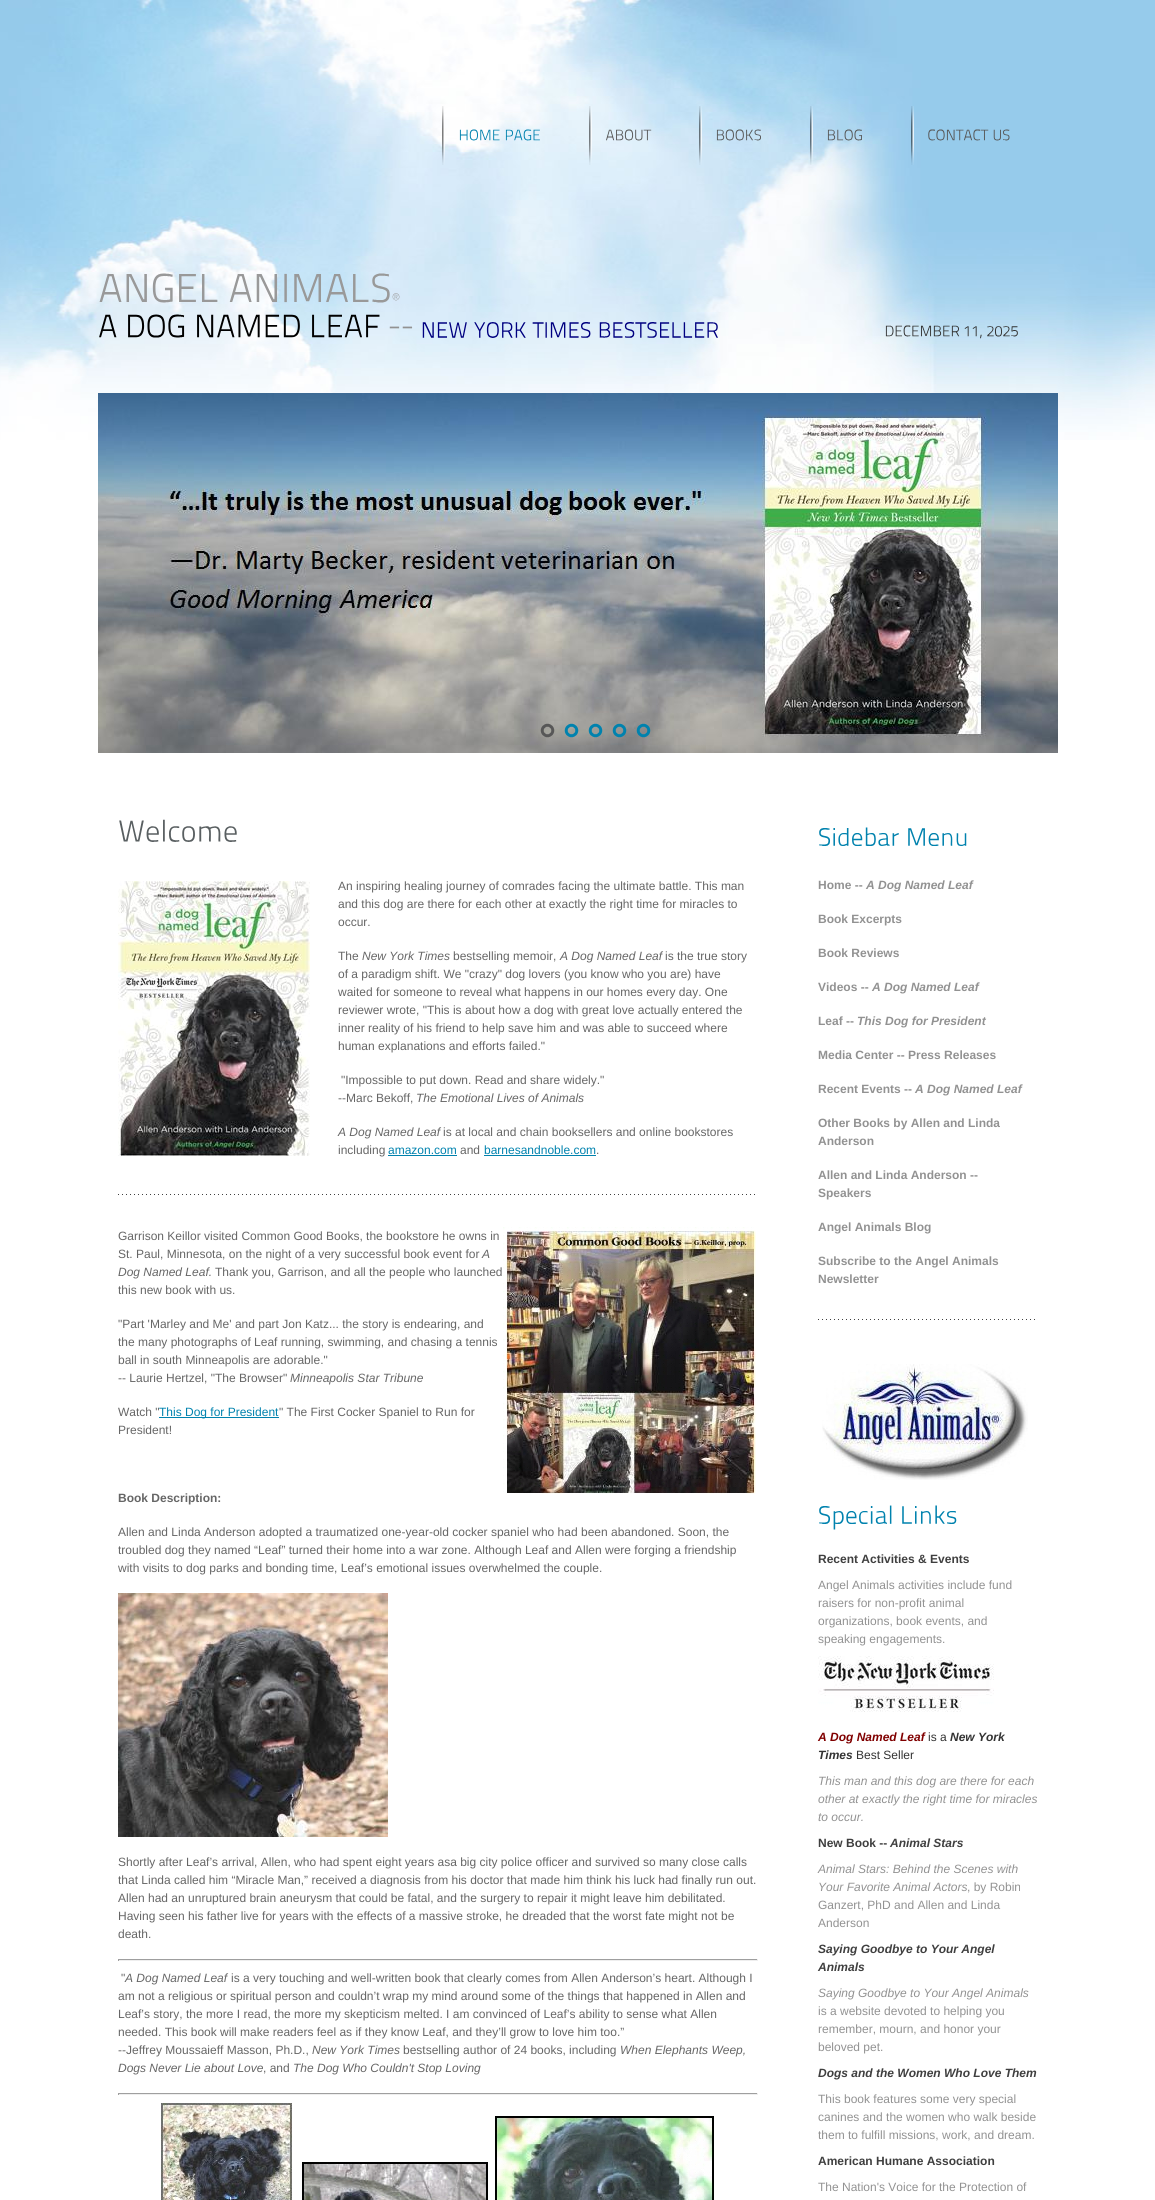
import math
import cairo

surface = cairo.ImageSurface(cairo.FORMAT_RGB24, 1155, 2200)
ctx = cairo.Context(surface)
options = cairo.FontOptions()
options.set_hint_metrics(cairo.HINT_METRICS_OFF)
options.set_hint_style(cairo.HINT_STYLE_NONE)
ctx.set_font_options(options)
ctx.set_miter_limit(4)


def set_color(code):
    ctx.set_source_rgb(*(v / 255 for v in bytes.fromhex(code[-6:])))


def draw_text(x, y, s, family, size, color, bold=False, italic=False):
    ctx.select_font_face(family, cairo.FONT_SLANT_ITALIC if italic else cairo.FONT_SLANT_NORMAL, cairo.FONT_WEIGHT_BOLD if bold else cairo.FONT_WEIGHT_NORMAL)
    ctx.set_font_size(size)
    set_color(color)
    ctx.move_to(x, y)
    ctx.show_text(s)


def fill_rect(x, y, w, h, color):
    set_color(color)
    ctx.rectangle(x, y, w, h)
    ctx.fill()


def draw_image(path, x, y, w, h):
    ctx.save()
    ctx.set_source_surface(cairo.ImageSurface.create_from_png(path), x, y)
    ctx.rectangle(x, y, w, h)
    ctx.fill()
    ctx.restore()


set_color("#ffffff")
ctx.paint()
draw_image("assets/img1.png", 0, 0, 1155, 440)
draw_image("assets/img2.png", 442, 106, 3, 59)
draw_image("assets/img3.png", 459, 129, 41, 12)
draw_image("assets/img4.png", 505, 129, 35, 12)
draw_image("assets/img5.png", 589, 106, 3, 59)
draw_image("assets/img6.png", 606, 129, 46, 12)
draw_image("assets/img7.png", 699, 106, 3, 59)
draw_image("assets/img8.png", 716, 129, 45, 12)
draw_image("assets/img9.png", 810, 106, 3, 59)
draw_image("assets/img10.png", 827, 129, 35, 12)
draw_image("assets/img11.png", 911, 106, 3, 59)
draw_image("assets/img12.png", 928, 129, 61, 12)
draw_image("assets/img13.png", 993, 129, 17, 12)
draw_image("assets/img14.png", 99, 273, 291, 30)
draw_image("assets/img15.png", 392, 293, 8, 8)
draw_image("assets/img16.png", 99, 314, 18, 24)
draw_image("assets/img17.png", 128, 314, 57, 24)
draw_image("assets/img18.png", 197, 314, 103, 24)
draw_image("assets/img19.png", 312, 314, 68, 24)
draw_image("assets/img20.png", 389, 326, 24, 3)
draw_image("assets/img21.png", 422, 322, 45, 16)
draw_image("assets/img22.png", 474, 322, 52, 16)
draw_image("assets/img23.png", 532, 322, 59, 16)
draw_image("assets/img24.png", 599, 322, 119, 16)
draw_image("assets/img25.png", 885, 325, 75, 12)
draw_image("assets/img26.png", 964, 326, 18, 13)
draw_image("assets/img27.png", 987, 326, 31, 11)
draw_image("assets/img28.png", 98, 393, 960, 360)
draw_image("assets/img29.png", 540, 723, 15, 15)
draw_image("assets/img30.png", 564, 723, 15, 15)
draw_image("assets/img31.png", 588, 723, 15, 15)
draw_image("assets/img32.png", 612, 723, 15, 15)
draw_image("assets/img33.png", 636, 723, 15, 15)
draw_image("assets/img34.png", 118, 1194, 637, 1)
draw_image("assets/img35.png", 119, 819, 118, 23)
draw_image("assets/img36.png", 118, 881, 192, 275)
draw_text(338, 890, "An inspiring healing journey of comrades facing the ultimate battle. This man", "Liberation Sans", 12, "#666666")
draw_text(338, 908, "and this dog are there for each other at exactly the right time for miracles to", "Liberation Sans", 12, "#666666")
draw_text(338, 926, "occur.", "Liberation Sans", 12, "#666666")
draw_text(338, 960, "The", "Liberation Sans", 12, "#666666")
draw_text(362, 960, "New York Times", "Liberation Sans", 12, "#666666", italic=True)
draw_text(453, 960, "bestselling memoir,", "Liberation Sans", 12, "#666666")
draw_text(560, 960, "A Dog Named Leaf", "Liberation Sans", 12, "#666666", italic=True)
draw_text(665, 960, "is the true story", "Liberation Sans", 12, "#666666")
draw_text(338, 978, "of a paradigm shift. We \"crazy\" dog lovers (you know who you are) have", "Liberation Sans", 12, "#666666")
draw_text(338, 996, "waited for someone to reveal what happens in our homes every day. One", "Liberation Sans", 12, "#666666")
draw_text(338, 1014, "reviewer wrote, \"This is about how a dog with great love actually entered the", "Liberation Sans", 12, "#666666")
draw_text(338, 1032, "inner reality of his friend to help save him and was able to succeed where", "Liberation Sans", 12, "#666666")
draw_text(338, 1050, "human explanations and efforts failed.\"", "Liberation Sans", 12, "#666666")
draw_text(341, 1084, "\"Impossible to put down. Read and share widely.\"", "Liberation Sans", 12, "#666666")
draw_text(338, 1102, "--Marc Bekoff,", "Liberation Sans", 12, "#666666")
draw_text(416, 1102, "The Emotional Lives of Animals", "Liberation Sans", 12, "#666666", italic=True)
draw_text(338, 1136, "A Dog Named Leaf", "Liberation Sans", 12, "#666666", italic=True)
draw_text(443, 1136, "is at local and chain booksellers and online bookstores", "Liberation Sans", 12, "#666666")
draw_text(338, 1154, "including", "Liberation Sans", 12, "#666666")
draw_text(388, 1154, "amazon.com", "Liberation Sans", 12, "#0082ae")
fill_rect(388, 1155, 69, 1, "#0082ae")
draw_text(460, 1154, "and", "Liberation Sans", 12, "#666666")
draw_text(484, 1154, "barnesandnoble.com", "Liberation Sans", 12, "#0082ae")
draw_text(596, 1154, ".", "Liberation Sans", 12, "#666666")
fill_rect(484, 1155, 112, 1, "#0082ae")
draw_text(118, 1240, "Garrison Keillor visited Common Good Books, the bookstore he owns in", "Liberation Sans", 12, "#666666")
draw_image("assets/img37.png", 503, 1227, 253, 267)
draw_text(118, 1258, "St. Paul, Minnesota, on the night of a very successful book event for", "Liberation Sans", 12, "#666666")
draw_text(482, 1258, "A", "Liberation Sans", 12, "#666666", italic=True)
draw_text(118, 1276, "Dog Named Leaf.", "Liberation Sans", 12, "#666666", italic=True)
draw_text(215, 1276, "Thank you, Garrison, and all the people who launched", "Liberation Sans", 12, "#666666")
draw_text(118, 1294, "this new book with us.", "Liberation Sans", 12, "#666666")
draw_text(118, 1328, "\"Part 'Marley and Me' and part Jon Katz... the story is endearing, and", "Liberation Sans", 12, "#666666")
draw_text(118, 1346, "the many photographs of Leaf running, swimming, and chasing a tennis", "Liberation Sans", 12, "#666666")
draw_text(118, 1364, "ball in south Minneapolis are adorable.\"", "Liberation Sans", 12, "#666666")
draw_text(118, 1382, "-- Laurie Hertzel, \"The Browser\"", "Liberation Sans", 12, "#666666")
draw_text(290, 1382, "Minneapolis Star Tribune", "Liberation Sans", 12, "#666666", italic=True)
draw_text(118, 1416, "Watch \"", "Liberation Sans", 12, "#666666")
fill_rect(159, 1417, 120, 1, "#0082ae")
draw_text(159, 1416, "This Dog for President", "Liberation Sans", 12, "#0082ae")
draw_text(279, 1416, "\" The First Cocker Spaniel to Run for", "Liberation Sans", 12, "#666666")
draw_text(118, 1434, "President!", "Liberation Sans", 12, "#666666")
draw_text(118, 1502, "Book Description:", "Liberation Sans", 12, "#666666", bold=True)
draw_text(118, 1536, "Allen and Linda Anderson adopted a traumatized one-year-old cocker spaniel who had been abandoned. Soon, the", "Liberation Sans", 12, "#666666")
draw_text(118, 1554, "troubled dog they named “Leaf” turned their home into a war zone. Although Leaf and Allen were forging a friendship", "Liberation Sans", 12, "#666666")
draw_text(118, 1572, "with visits to dog parks and bonding time, Leaf’s emotional issues overwhelmed the couple.", "Liberation Sans", 12, "#666666")
draw_image("assets/img38.png", 118, 1593, 270, 244)
draw_text(118, 1866, "Shortly after Leaf’s arrival, Allen, who had spent eight years asa big city police officer and survived so many close calls", "Liberation Sans", 12, "#666666")
draw_text(118, 1884, "that Linda called him “Miracle Man,” received a diagnosis from his doctor that made him think his luck had finally run out.", "Liberation Sans", 12, "#666666")
draw_text(118, 1902, "Allen had an unruptured brain aneurysm that could be fatal, and the surgery to repair it might leave him debilitated.", "Liberation Sans", 12, "#666666")
draw_text(118, 1920, "Having seen his father live for years with the effects of a massive stroke, he dreaded that the worst fate might not be", "Liberation Sans", 12, "#666666")
draw_text(118, 1938, "death.", "Liberation Sans", 12, "#666666")
fill_rect(118, 1959, 640, 1, "#9f9f9f")
fill_rect(757, 1959, 1, 2, "#eeeeee")
fill_rect(118, 1960, 640, 1, "#eeeeee")
fill_rect(118, 1959, 1, 2, "#9f9f9f")
draw_text(121, 1982, "\"", "Liberation Sans", 12, "#666666")
draw_text(125, 1982, "A Dog Named Leaf", "Liberation Sans", 12, "#666666", italic=True)
draw_text(231, 1982, "is a very touching and well-written book that clearly comes from Allen Anderson’s heart. Although I", "Liberation Sans", 12, "#666666")
draw_text(118, 2000, "am not a religious or spiritual person and couldn’t wrap my mind around some of the things that happened in Allen and", "Liberation Sans", 12, "#666666")
draw_text(118, 2018, "Leaf’s story, the more I read, the more my skepticism melted. I am convinced of Leaf’s ability to sense what Allen", "Liberation Sans", 12, "#666666")
draw_text(118, 2036, "needed. This book will make readers feel as if they know Leaf, and they’ll grow to love him too.”", "Liberation Sans", 12, "#666666")
draw_text(118, 2054, "--Jeffrey Moussaieff Masson, Ph.D.,", "Liberation Sans", 12, "#666666")
draw_text(312, 2054, "New York Times", "Liberation Sans", 12, "#666666", italic=True)
draw_text(403, 2054, "bestselling author of 24 books, including", "Liberation Sans", 12, "#666666")
draw_text(620, 2054, "When Elephants Weep,", "Liberation Sans", 12, "#666666", italic=True)
draw_text(118, 2072, "Dogs Never Lie about Love", "Liberation Sans", 12, "#666666", italic=True)
draw_text(263, 2072, ", and", "Liberation Sans", 12, "#666666")
draw_text(293, 2072, "The Dog Who Couldn't Stop Loving", "Liberation Sans", 12, "#666666", italic=True)
fill_rect(118, 2093, 640, 1, "#9f9f9f")
fill_rect(757, 2093, 1, 2, "#eeeeee")
fill_rect(118, 2094, 640, 1, "#eeeeee")
fill_rect(118, 2093, 1, 2, "#9f9f9f")
draw_image("assets/img39.png", 161, 2103, 131, 97)
draw_image("assets/img40.png", 302, 2162, 186, 38)
draw_image("assets/img41.png", 495, 2116, 219, 84)
draw_image("assets/img42.png", 818, 1319, 217, 1)
draw_image("assets/img43.png", 819, 827, 80, 19)
draw_image("assets/img44.png", 908, 828, 59, 18)
draw_text(818, 889, "Home --", "Liberation Sans", 12, "#929292", bold=True)
draw_text(866, 889, "A Dog Named Leaf", "Liberation Sans", 12, "#929292", bold=True, italic=True)
draw_text(818, 923, "Book Excerpts", "Liberation Sans", 12, "#929292", bold=True)
draw_text(818, 957, "Book Reviews", "Liberation Sans", 12, "#929292", bold=True)
draw_text(818, 991, "Videos --", "Liberation Sans", 12, "#929292", bold=True)
draw_text(872, 991, "A Dog Named Leaf", "Liberation Sans", 12, "#929292", bold=True, italic=True)
draw_text(818, 1025, "Leaf --", "Liberation Sans", 12, "#929292", bold=True)
draw_text(857, 1025, "This Dog for President", "Liberation Sans", 12, "#929292", bold=True, italic=True)
draw_text(818, 1059, "Media Center -- Press Releases", "Liberation Sans", 12, "#929292", bold=True)
draw_text(818, 1093, "Recent Events --", "Liberation Sans", 12, "#929292", bold=True)
draw_text(915, 1093, "A Dog Named Leaf", "Liberation Sans", 12, "#929292", bold=True, italic=True)
draw_text(818, 1127, "Other Books by Allen and Linda", "Liberation Sans", 12, "#929292", bold=True)
draw_text(818, 1145, "Anderson", "Liberation Sans", 12, "#929292", bold=True)
draw_text(818, 1179, "Allen and Linda Anderson --", "Liberation Sans", 12, "#929292", bold=True)
draw_text(818, 1197, "Speakers", "Liberation Sans", 12, "#929292", bold=True)
draw_text(818, 1231, "Angel Animals Blog", "Liberation Sans", 12, "#929292", bold=True)
draw_text(818, 1265, "Subscribe to the Angel Animals", "Liberation Sans", 12, "#929292", bold=True)
draw_text(818, 1283, "Newsletter", "Liberation Sans", 12, "#929292", bold=True)
draw_image("assets/img45.png", 822, 1364, 206, 116)
draw_image("assets/img46.png", 819, 1505, 73, 25)
draw_image("assets/img47.png", 902, 1505, 55, 19)
draw_text(818, 1563, "Recent Activities & Events", "Liberation Sans", 12, "#3f3f3f", bold=True)
draw_text(818, 1589, "Angel Animals activities include fund", "Liberation Sans", 12, "#929292")
draw_text(818, 1607, "raisers for non-profit animal", "Liberation Sans", 12, "#929292")
draw_text(818, 1625, "organizations, book events, and", "Liberation Sans", 12, "#929292")
draw_text(818, 1643, "speaking engagements.", "Liberation Sans", 12, "#929292")
draw_image("assets/img48.png", 818, 1656, 176, 56)
draw_text(818, 1741, "A Dog Named Leaf", "Liberation Sans", 12, "#800000", bold=True, italic=True)
draw_text(928, 1741, "is a", "Liberation Sans", 12, "#333333")
draw_text(950, 1741, "New York", "Liberation Sans", 12, "#333333", bold=True, italic=True)
draw_text(818, 1759, "Times", "Liberation Sans", 12, "#333333", bold=True, italic=True)
draw_text(856, 1759, "Best Seller", "Liberation Sans", 12, "#333333")
draw_text(818, 1785, "This man and this dog are there for each", "Liberation Sans", 12, "#929292", italic=True)
draw_text(818, 1803, "other at exactly the right time for miracles", "Liberation Sans", 12, "#929292", italic=True)
draw_text(818, 1821, "to occur.", "Liberation Sans", 12, "#929292", italic=True)
draw_text(818, 1847, "New Book --", "Liberation Sans", 12, "#3f3f3f", bold=True)
draw_text(890, 1847, "Animal Stars", "Liberation Sans", 12, "#3f3f3f", bold=True, italic=True)
draw_text(818, 1873, "Animal Stars: Behind the Scenes with", "Liberation Sans", 12, "#929292", italic=True)
draw_text(818, 1891, "Your Favorite Animal Actors", "Liberation Sans", 12, "#929292", italic=True)
draw_text(967, 1891, ", by Robin", "Liberation Sans", 12, "#929292")
draw_text(818, 1909, "Ganzert, PhD and Allen and Linda", "Liberation Sans", 12, "#929292")
draw_text(818, 1927, "Anderson", "Liberation Sans", 12, "#929292")
draw_text(818, 1953, "Saying Goodbye to Your Angel", "Liberation Sans", 12, "#3f3f3f", bold=True, italic=True)
draw_text(818, 1971, "Animals", "Liberation Sans", 12, "#3f3f3f", bold=True, italic=True)
draw_text(818, 1997, "Saying Goodbye to Your Angel Animals", "Liberation Sans", 12, "#929292", italic=True)
draw_text(818, 2015, "is a website devoted to helping you", "Liberation Sans", 12, "#929292")
draw_text(818, 2033, "remember, mourn, and honor your", "Liberation Sans", 12, "#929292")
draw_text(818, 2051, "beloved pet.", "Liberation Sans", 12, "#929292")
draw_text(818, 2077, "Dogs and the Women Who Love Them", "Liberation Sans", 12, "#3f3f3f", bold=True, italic=True)
draw_text(818, 2103, "This book features some very special", "Liberation Sans", 12, "#929292")
draw_text(818, 2121, "canines and the women who walk beside", "Liberation Sans", 12, "#929292")
draw_text(818, 2139, "them to fulfill missions, work, and dream.", "Liberation Sans", 12, "#929292")
draw_text(818, 2165, "American Humane Association", "Liberation Sans", 12, "#3f3f3f", bold=True)
draw_text(818, 2191, "The Nation's Voice for the Protection of", "Liberation Sans", 12, "#929292")
surface.write_to_png("output.png")
